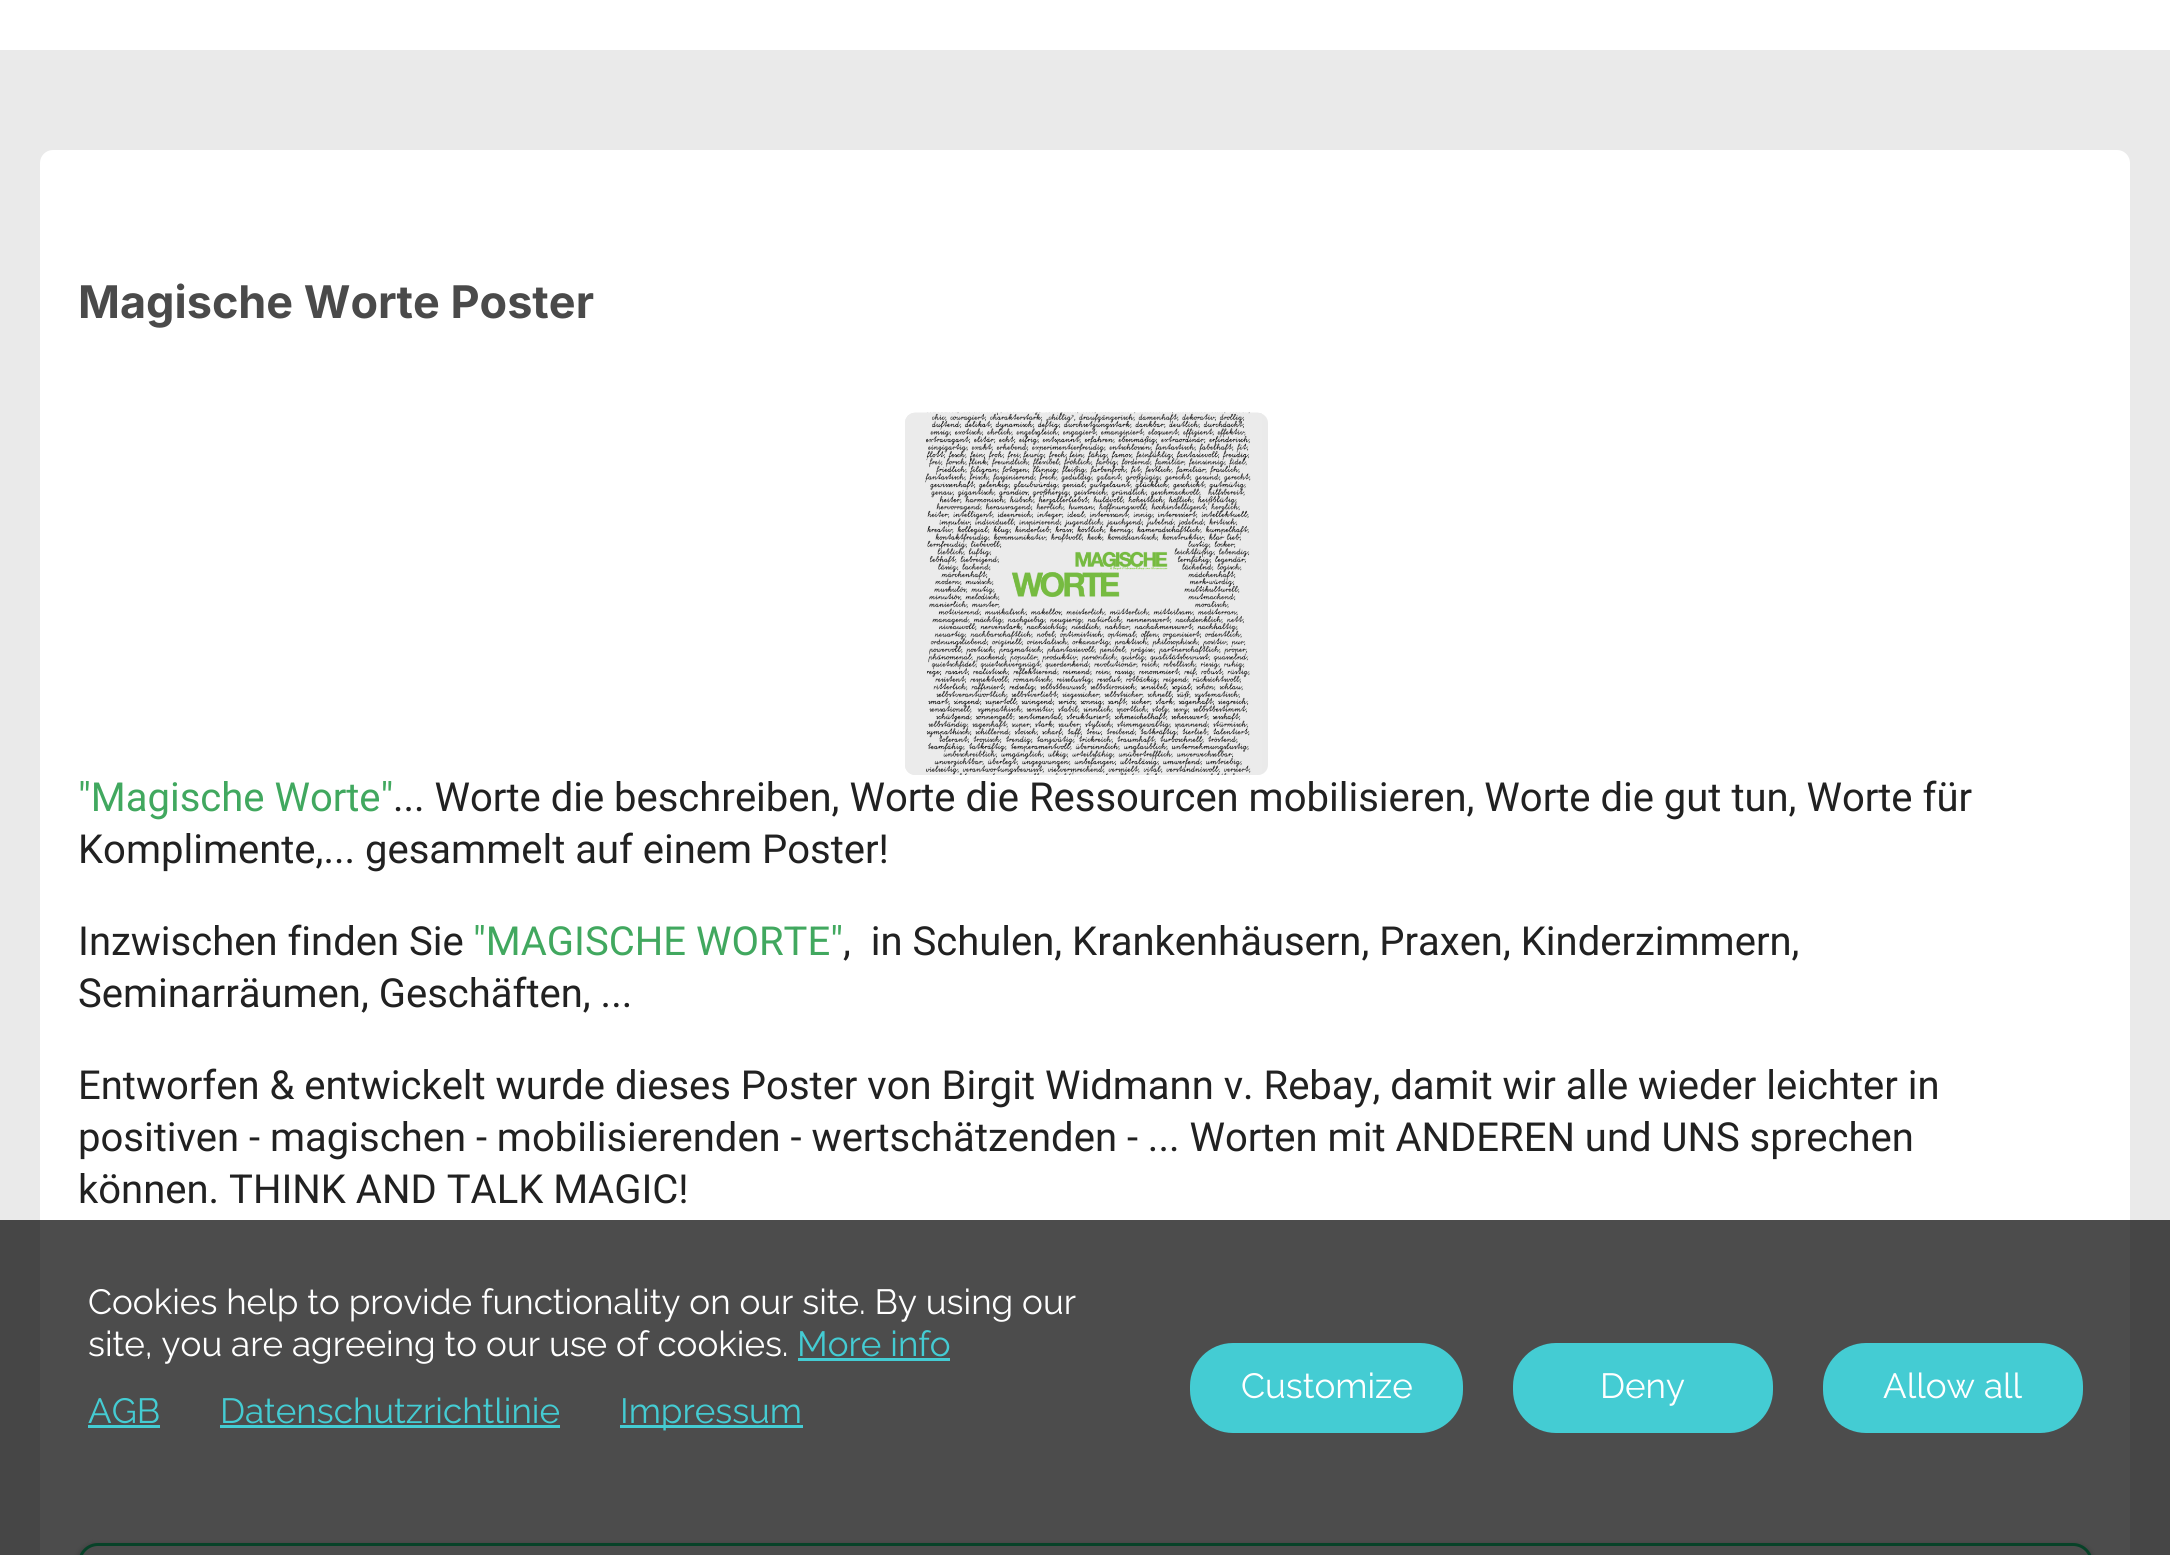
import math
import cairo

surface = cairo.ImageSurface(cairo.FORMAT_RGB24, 2170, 1555)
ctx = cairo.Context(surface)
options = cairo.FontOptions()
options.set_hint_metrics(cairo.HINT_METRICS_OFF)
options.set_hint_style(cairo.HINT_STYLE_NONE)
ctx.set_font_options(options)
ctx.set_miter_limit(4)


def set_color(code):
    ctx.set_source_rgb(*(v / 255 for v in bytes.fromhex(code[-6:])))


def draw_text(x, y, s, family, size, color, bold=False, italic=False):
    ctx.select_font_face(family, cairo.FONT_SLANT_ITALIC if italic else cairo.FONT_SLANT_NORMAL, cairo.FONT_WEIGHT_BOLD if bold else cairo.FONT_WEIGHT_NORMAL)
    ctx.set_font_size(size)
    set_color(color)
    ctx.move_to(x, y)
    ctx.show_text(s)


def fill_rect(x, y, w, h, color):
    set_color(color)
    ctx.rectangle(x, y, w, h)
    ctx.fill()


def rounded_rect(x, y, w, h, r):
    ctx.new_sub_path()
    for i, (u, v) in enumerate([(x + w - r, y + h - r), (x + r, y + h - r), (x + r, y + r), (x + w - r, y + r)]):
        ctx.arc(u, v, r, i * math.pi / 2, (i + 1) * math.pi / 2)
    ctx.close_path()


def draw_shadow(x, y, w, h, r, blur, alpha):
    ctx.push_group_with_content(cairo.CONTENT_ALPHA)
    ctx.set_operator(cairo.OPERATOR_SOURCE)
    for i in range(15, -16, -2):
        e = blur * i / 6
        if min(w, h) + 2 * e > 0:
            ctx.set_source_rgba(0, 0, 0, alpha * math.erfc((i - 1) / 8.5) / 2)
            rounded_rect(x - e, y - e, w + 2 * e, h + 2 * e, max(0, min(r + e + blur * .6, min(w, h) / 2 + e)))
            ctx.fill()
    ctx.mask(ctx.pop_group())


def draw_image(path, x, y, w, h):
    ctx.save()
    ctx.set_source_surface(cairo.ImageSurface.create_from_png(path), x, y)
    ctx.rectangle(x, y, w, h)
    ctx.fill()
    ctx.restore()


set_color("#ffffff")
ctx.paint()
fill_rect(0, 50, 2170, 1505, "#eaeaea")
set_color("#ffffff")
rounded_rect(40, 150, 2090, 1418, 13)
ctx.fill()
draw_text(78, 318, "Magische Worte Poster", "Inter", 45, "#4a4a4a", bold=True)
set_color("#eaeaea")
rounded_rect(905, 413, 363, 362, 10)
ctx.fill()
draw_image("assets/img1.png", 905, 412, 357, 363)
draw_text(78, 811, "\"Magische Worte\"", "Roboto", 40, "#41a85f")
draw_text(393, 811, "... Worte die beschreiben, Worte die Ressourcen mobilisieren, Worte die gut tun, Worte für", "Roboto", 40, "#212121")
draw_text(78, 863, "Komplimente,... gesammelt auf einem Poster!", "Roboto", 40, "#212121")
draw_text(78, 955, "Inzwischen finden Sie", "Roboto", 40, "#212121")
draw_text(473, 955, "\"MAGISCHE WORTE\"", "Roboto", 40, "#41a85f")
draw_text(843, 955, ",  in Schulen, Krankenhäusern, Praxen, Kinderzimmern,", "Roboto", 40, "#212121")
draw_text(78, 1007, "Seminarräumen, Geschäften, ...", "Roboto", 40, "#212121")
draw_text(78, 1099, "Entworfen & entwickelt wurde dieses Poster von Birgit Widmann v. Rebay, damit wir alle wieder leichter in", "Roboto", 40, "#212121")
draw_text(78, 1151, "positiven - magischen - mobilisierenden - wertschätzenden - ... Worten mit ANDEREN und UNS sprechen", "Roboto", 40, "#212121")
draw_text(78, 1203, "können. THINK AND TALK MAGIC!", "Roboto", 40, "#212121")
set_color("#000000")
draw_shadow(78, 1545, 2015, 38, 20, 2.5, 0.1)
draw_shadow(75, 1543, 2020, 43, 23, 2.5, 0.1)
set_color("#ffffff")
rounded_rect(79.5, 1544.5, 2012, 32, 18.5)
ctx.fill_preserve()
set_color("#17df87")
ctx.set_line_width(3)
ctx.stroke()
ctx.set_source_rgba(0, 0, 0, 0.7)
ctx.rectangle(0, 1220, 2170, 335)
ctx.fill()
draw_text(88, 1314, "Cookies help to provide functionality on our site. By using our", "Raleway", 35, "#ffffff")
draw_text(88, 1356, "site, you are agreeing to our use of cookies.", "Raleway", 35, "#ffffff")
draw_text(797, 1356, "More info", "Raleway", 35, "#44ccd3")
fill_rect(798, 1358, 152, 3, "#44ccd3")
draw_text(88, 1423, "AGB", "Raleway", 35, "#44ccd3")
fill_rect(88, 1425, 72, 3, "#44ccd3")
draw_text(220, 1423, "Datenschutzrichtlinie", "Raleway", 35, "#44ccd3")
fill_rect(220, 1425, 340, 3, "#44ccd3")
fill_rect(620, 1425, 183, 3, "#44ccd3")
draw_text(620, 1423, "Impressum", "Raleway", 35, "#44ccd3")
rounded_rect(1190, 1343, 273, 90, 43)
ctx.fill()
draw_text(1241, 1398, "Customize", "Raleway", 35, "#ffffff")
set_color("#44ccd3")
rounded_rect(1513, 1343, 260, 90, 43)
ctx.fill()
draw_text(1600, 1398, "Deny", "Raleway", 35, "#ffffff")
set_color("#44ccd3")
rounded_rect(1823, 1343, 260, 90, 43)
ctx.fill()
draw_text(1883, 1398, "Allow all", "Raleway", 35, "#ffffff")
surface.write_to_png("output.png")
